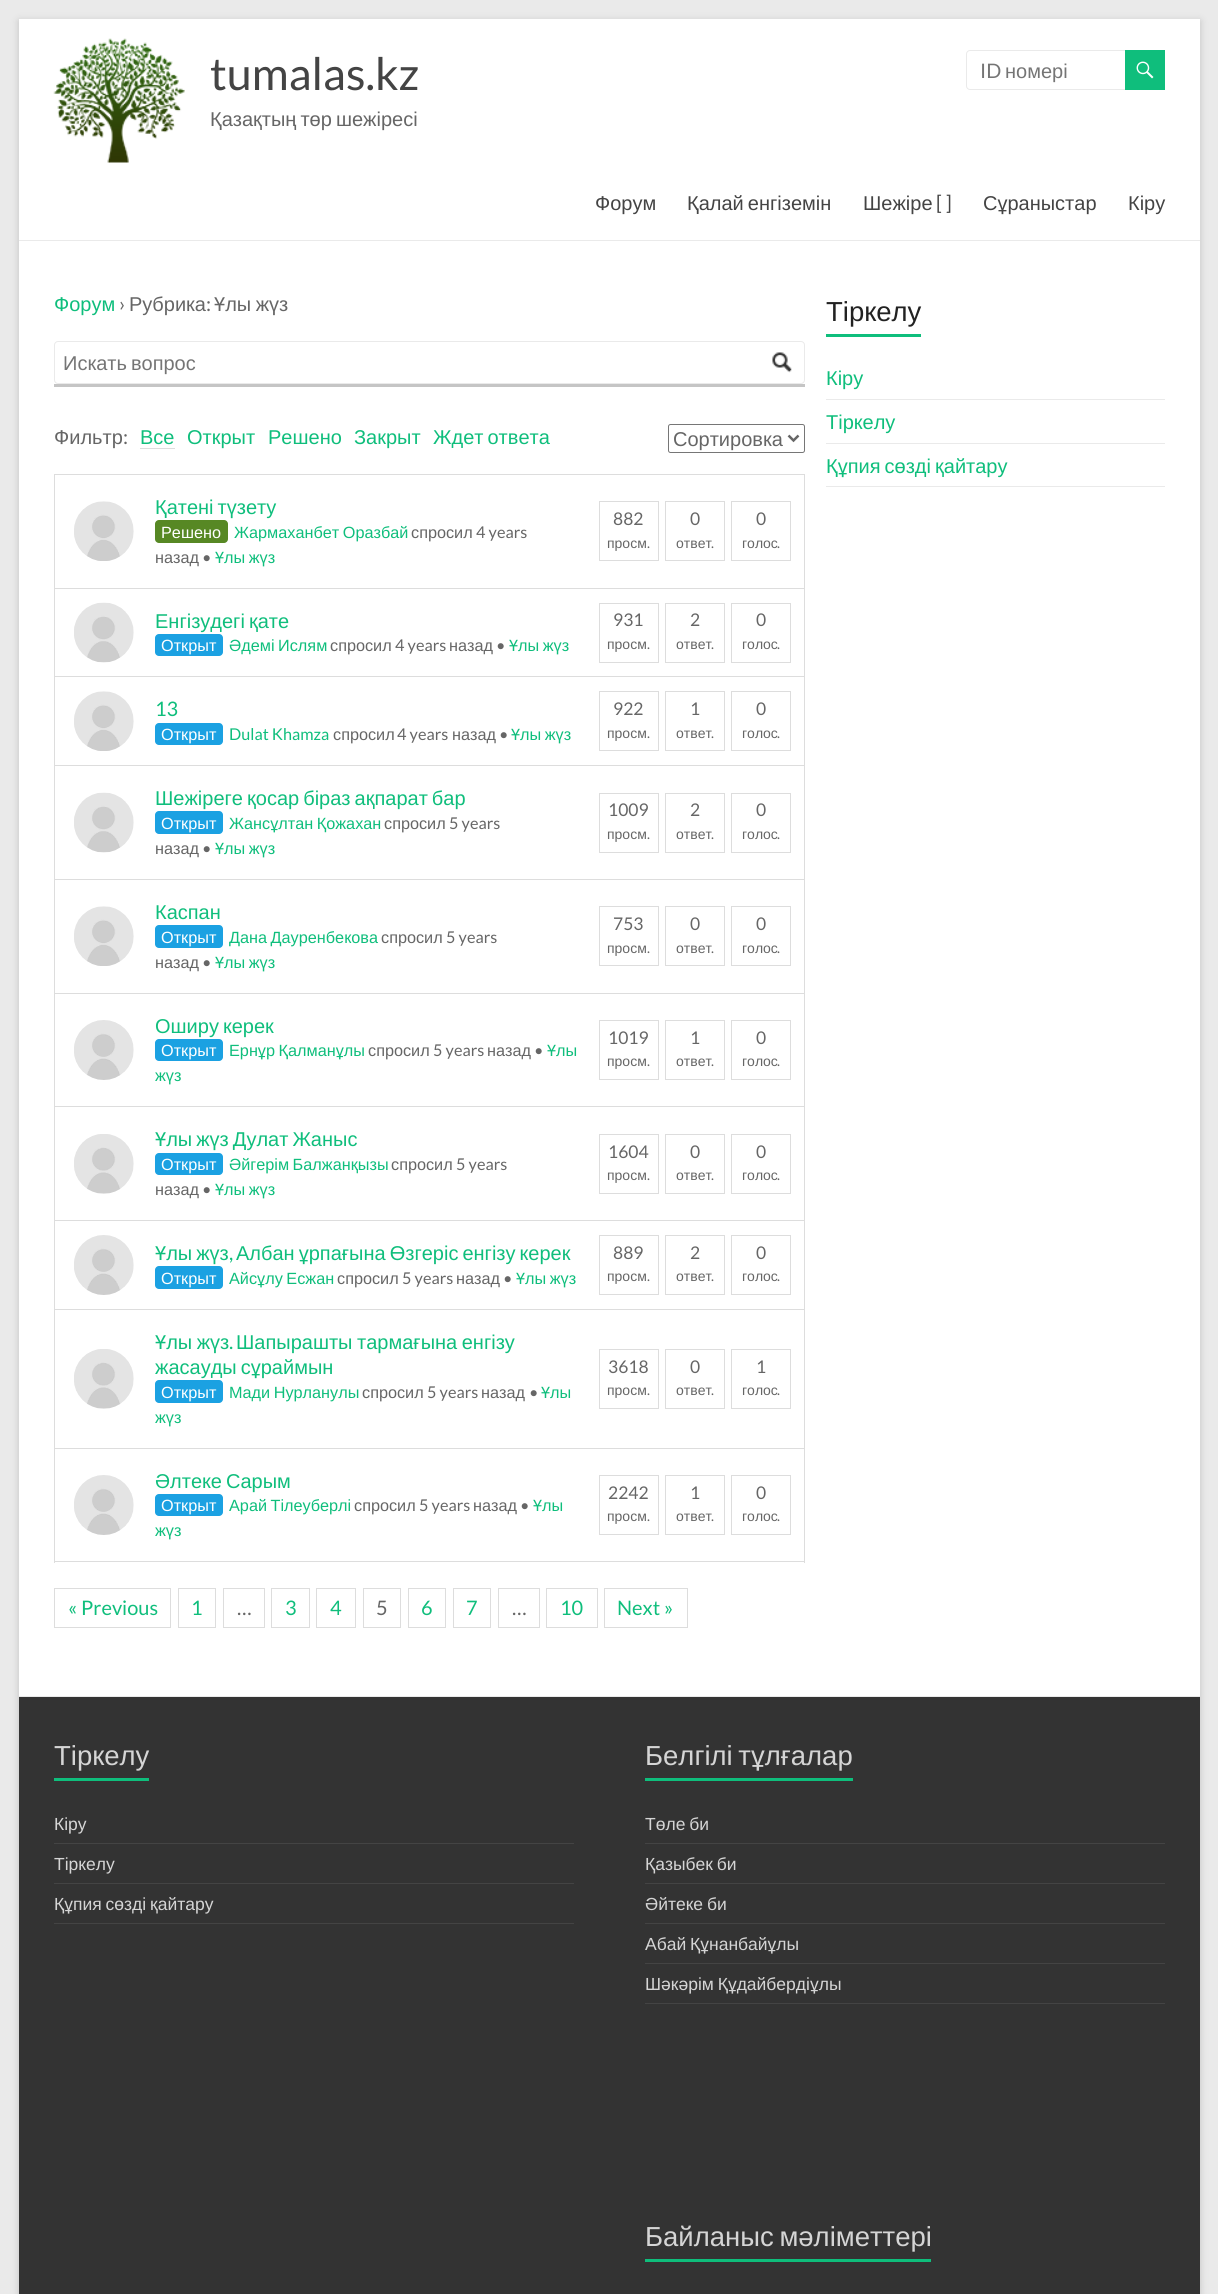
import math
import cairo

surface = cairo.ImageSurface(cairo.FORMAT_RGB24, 1218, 2294)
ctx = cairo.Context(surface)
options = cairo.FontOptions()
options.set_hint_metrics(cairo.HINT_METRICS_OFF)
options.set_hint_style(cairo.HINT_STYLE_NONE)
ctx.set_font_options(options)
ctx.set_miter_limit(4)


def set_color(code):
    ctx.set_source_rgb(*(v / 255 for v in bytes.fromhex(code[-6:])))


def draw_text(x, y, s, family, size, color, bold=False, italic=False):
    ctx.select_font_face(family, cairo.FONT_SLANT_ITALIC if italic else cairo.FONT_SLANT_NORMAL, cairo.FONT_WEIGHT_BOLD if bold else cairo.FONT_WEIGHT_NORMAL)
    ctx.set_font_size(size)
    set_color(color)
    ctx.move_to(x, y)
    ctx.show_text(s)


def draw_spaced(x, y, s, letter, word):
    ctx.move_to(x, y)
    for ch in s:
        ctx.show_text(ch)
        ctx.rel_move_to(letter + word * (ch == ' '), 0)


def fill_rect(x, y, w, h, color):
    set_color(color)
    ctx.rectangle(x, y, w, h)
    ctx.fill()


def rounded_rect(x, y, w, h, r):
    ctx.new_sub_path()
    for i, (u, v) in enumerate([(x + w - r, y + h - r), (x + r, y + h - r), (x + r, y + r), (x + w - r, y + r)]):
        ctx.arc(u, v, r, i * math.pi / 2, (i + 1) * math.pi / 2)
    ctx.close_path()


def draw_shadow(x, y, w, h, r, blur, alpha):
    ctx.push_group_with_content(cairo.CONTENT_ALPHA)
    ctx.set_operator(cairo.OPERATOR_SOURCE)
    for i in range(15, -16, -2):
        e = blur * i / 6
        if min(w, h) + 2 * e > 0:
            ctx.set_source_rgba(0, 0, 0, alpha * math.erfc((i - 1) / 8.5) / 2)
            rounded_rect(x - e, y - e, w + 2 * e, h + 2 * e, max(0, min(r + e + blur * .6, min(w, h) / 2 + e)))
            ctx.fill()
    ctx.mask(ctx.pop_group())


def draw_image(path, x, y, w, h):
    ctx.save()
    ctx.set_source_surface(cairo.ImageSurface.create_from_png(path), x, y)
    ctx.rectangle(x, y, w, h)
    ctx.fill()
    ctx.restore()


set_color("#eaeaea")
ctx.paint()
set_color("#646464")
draw_shadow(19, 21, 1181, 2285, 0, 4, 0.3)
fill_rect(19, 19, 1181, 1677, "#ffffff")
fill_rect(19, 240, 1181, 1, "#eaeaea")
draw_image("assets/img1.png", 53, 38, 132, 125)
draw_text(210, 90, "tumalas.kz", "Lato", 45, "#444444")
ctx.select_font_face("Liberation Sans")
ctx.set_font_size(20)
set_color("#666666")
draw_spaced(210, 126, "Қазақтың төр шежіресі", 0, -1.5)
rounded_rect(966.5, 50.5, 162, 39, 3.5)
set_color("#eaeaea")
ctx.set_line_width(1)
ctx.stroke()
draw_text(980, 78, "ID", "Lato", 20, "#757575")
draw_text(1005, 78, "номері", "Liberation Sans", 20, "#757575")
fill_rect(1125, 50, 40, 40, "#0fbe7c")
draw_image("assets/img2.png", 1136, 61, 18, 18)
draw_text(595, 210, "Форум", "Liberation Sans", 20, "#444444")
draw_spaced(687, 210, "Қалай енгіземін", 0, -1.5)
draw_text(863, 210, "Шежіре", "Liberation Sans", 20, "#444444")
draw_text(936, 210, "[ ]", "Lato", 20, "#444444")
draw_text(983, 210, "Сұраныстар", "Liberation Sans", 20, "#444444")
draw_text(1128, 210, "Кіру", "Liberation Sans", 20, "#444444")
draw_text(54, 311, "Форум", "Liberation Sans", 20, "#0fbe7c")
draw_text(119, 311, "›", "Lato", 20, "#666666")
draw_text(129, 311, "Рубрика", "Liberation Sans", 20, "#666666")
draw_text(206, 311, ":", "Lato", 20, "#666666")
ctx.select_font_face("Liberation Sans")
draw_spaced(214, 311, "Ұлы жүз", 0, -1)
draw_image("assets/img3.png", 772, 352, 20, 21)
rounded_rect(54.5, 341.5, 750, 42, 3.5)
set_color("#eaeaea")
ctx.stroke()
set_color("#757575")
draw_spaced(63, 370, "Искать вопрос", 0, -1.5)
fill_rect(54, 384, 751, 3, "#c5c5c5")
draw_text(54, 444, "Фильтр", "Liberation Sans", 20, "#666666")
draw_text(123, 444, ":", "Lato", 20, "#666666")
draw_text(140, 444, "Все", "Liberation Sans", 20, "#0fbe7c")
fill_rect(140, 448, 35, 1, "#dddddd")
draw_text(187, 444, "Открыт", "Liberation Sans", 20, "#0fbe7c")
draw_text(268, 444, "Решено", "Liberation Sans", 20, "#0fbe7c")
draw_text(354, 444, "Закрыт", "Liberation Sans", 20, "#0fbe7c")
draw_spaced(433, 444, "Ждет ответа", 0, -1.5)
rounded_rect(668.5, 424.5, 136, 28, 2)
set_color("#767676")
ctx.stroke()
ctx.new_path()
ctx.move_to(788.5, 435.5)
ctx.line_to(793.5, 440.5)
ctx.line_to(798.5, 435.5)
set_color("#666666")
ctx.set_line_width(2.5)
ctx.stroke()
draw_text(673, 446, "Сортировка", "Liberation Sans", 20, "#666666")
fill_rect(54, 474, 751, 1, "#dddddd")
fill_rect(804, 475, 1, 974, "#dddddd")
fill_rect(54, 588, 751, 1, "#dddddd")
fill_rect(54, 475, 1, 114, "#dddddd")
set_color("#0fbe7c")
draw_spaced(155, 514, "Қатені түзету", 0, -1.5)
draw_image("assets/img4.png", 74, 501, 60, 60)
ctx.set_font_size(16.25)
draw_spaced(234, 538, "Жармаханбет Оразбай", 0, -1)
draw_text(411, 538, "спросил", "Liberation Sans", 16.25, "#666666")
draw_text(476, 538, "4 years", "Lato", 16.25, "#666666")
draw_text(155, 563, "назад", "Liberation Sans", 16.25, "#666666")
set_color("#578824")
rounded_rect(155, 520, 73, 23, 4)
ctx.fill()
draw_text(161, 538, "Решено", "Liberation Sans", 16.25, "#ffffff")
draw_text(202, 563, "•", "Lato", 16.25, "#666666")
ctx.select_font_face("Liberation Sans")
set_color("#0fbe7c")
draw_spaced(215, 563, "Ұлы жүз", 0, -1)
ctx.rectangle(599.5, 501.5, 59, 59)
set_color("#dddddd")
ctx.set_line_width(1)
ctx.stroke()
draw_text(613, 525, "882", "Lato", 17.5, "#666666")
draw_text(607, 548, "просм", "Liberation Sans", 14, "#666666")
draw_text(647, 548, ".", "Lato", 14, "#666666")
ctx.rectangle(665.5, 501.5, 59, 59)
set_color("#dddddd")
ctx.stroke()
draw_text(690, 525, "0", "Lato", 17.5, "#666666")
draw_text(676, 548, "ответ", "Liberation Sans", 14, "#666666")
draw_text(711, 548, ".", "Lato", 14, "#666666")
ctx.rectangle(731.5, 501.5, 59, 59)
set_color("#dddddd")
ctx.stroke()
draw_text(756, 525, "0", "Lato", 17.5, "#666666")
draw_text(742, 548, "голос", "Liberation Sans", 14, "#666666")
draw_text(777, 548, ".", "Lato", 14, "#666666")
fill_rect(54, 676, 751, 1, "#dddddd")
fill_rect(54, 589, 1, 89, "#dddddd")
ctx.select_font_face("Liberation Sans")
ctx.set_font_size(20)
set_color("#0fbe7c")
draw_spaced(155, 628, "Енгізудегі қате", 0, -1.5)
ctx.rectangle(599.5, 603.5, 59, 59)
set_color("#dddddd")
ctx.stroke()
draw_text(613, 626, "931", "Lato", 17.5, "#666666")
draw_text(607, 649, "просм", "Liberation Sans", 14, "#666666")
draw_text(647, 649, ".", "Lato", 14, "#666666")
ctx.rectangle(665.5, 603.5, 59, 59)
set_color("#dddddd")
ctx.stroke()
draw_text(690, 626, "2", "Lato", 17.5, "#666666")
draw_text(676, 649, "ответ", "Liberation Sans", 14, "#666666")
draw_text(711, 649, ".", "Lato", 14, "#666666")
ctx.rectangle(731.5, 603.5, 59, 59)
set_color("#dddddd")
ctx.stroke()
draw_text(756, 626, "0", "Lato", 17.5, "#666666")
draw_text(742, 649, "голос", "Liberation Sans", 14, "#666666")
draw_text(777, 649, ".", "Lato", 14, "#666666")
set_color("#1ba1e2")
rounded_rect(155, 634, 68, 22, 4)
ctx.fill()
draw_text(161, 651, "Открыт", "Liberation Sans", 16.25, "#ffffff")
draw_image("assets/img5.png", 74, 602, 60, 61)
set_color("#0fbe7c")
draw_spaced(229, 651, "Әдемі Ислям", 0, -1)
draw_text(330, 651, "спросил", "Liberation Sans", 16.25, "#666666")
draw_text(395, 651, "4 years", "Lato", 16.25, "#666666")
draw_text(449, 651, "назад", "Liberation Sans", 16.25, "#666666")
draw_text(496, 651, "•", "Lato", 16.25, "#666666")
ctx.select_font_face("Liberation Sans")
set_color("#0fbe7c")
draw_spaced(509, 651, "Ұлы жүз", 0, -1)
fill_rect(54, 765, 751, 1, "#dddddd")
fill_rect(54, 678, 1, 88, "#dddddd")
draw_text(155, 716, "13", "Lato", 20, "#0fbe7c")
ctx.rectangle(599.5, 691.5, 59, 59)
set_color("#dddddd")
ctx.stroke()
draw_text(613, 715, "922", "Lato", 17.5, "#666666")
draw_text(607, 738, "просм", "Liberation Sans", 14, "#666666")
draw_text(647, 738, ".", "Lato", 14, "#666666")
ctx.rectangle(665.5, 691.5, 59, 59)
set_color("#dddddd")
ctx.stroke()
draw_text(690, 715, "1", "Lato", 17.5, "#666666")
draw_text(676, 738, "ответ", "Liberation Sans", 14, "#666666")
draw_text(711, 738, ".", "Lato", 14, "#666666")
ctx.rectangle(731.5, 691.5, 59, 59)
set_color("#dddddd")
ctx.stroke()
draw_text(756, 715, "0", "Lato", 17.5, "#666666")
draw_text(742, 738, "голос", "Liberation Sans", 14, "#666666")
draw_text(777, 738, ".", "Lato", 14, "#666666")
set_color("#1ba1e2")
rounded_rect(155, 723, 68, 22, 4)
ctx.fill()
draw_text(161, 740, "Открыт", "Liberation Sans", 16.25, "#ffffff")
draw_image("assets/img6.png", 74, 691, 60, 60)
draw_text(229, 740, "Dulat Khamza", "Lato", 16.25, "#0fbe7c")
draw_text(333, 740, "спросил", "Liberation Sans", 16.25, "#666666")
draw_text(397, 740, "4 years", "Lato", 16.25, "#666666")
draw_text(452, 740, "назад", "Liberation Sans", 16.25, "#666666")
draw_text(499, 740, "•", "Lato", 16.25, "#666666")
ctx.select_font_face("Liberation Sans")
set_color("#0fbe7c")
draw_spaced(511, 740, "Ұлы жүз", 0, -1)
fill_rect(54, 879, 751, 1, "#dddddd")
fill_rect(54, 766, 1, 114, "#dddddd")
ctx.set_font_size(20)
set_color("#0fbe7c")
draw_spaced(155, 805, "Шежіреге қосар біраз ақпарат бар", 0, -1.5)
draw_image("assets/img5.png", 74, 792, 60, 61)
ctx.set_font_size(16.25)
draw_spaced(229, 829, "Жансұлтан Қожахан", 0, -1)
draw_text(384, 829, "спросил", "Liberation Sans", 16.25, "#666666")
draw_text(449, 829, "5 years", "Lato", 16.25, "#666666")
draw_text(155, 854, "назад", "Liberation Sans", 16.25, "#666666")
set_color("#1ba1e2")
rounded_rect(155, 811, 68, 23, 4)
ctx.fill()
draw_text(161, 829, "Открыт", "Liberation Sans", 16.25, "#ffffff")
draw_text(202, 854, "•", "Lato", 16.25, "#666666")
ctx.select_font_face("Liberation Sans")
set_color("#0fbe7c")
draw_spaced(215, 854, "Ұлы жүз", 0, -1)
ctx.rectangle(599.5, 793.5, 59, 59)
set_color("#dddddd")
ctx.stroke()
draw_text(608, 816, "1009", "Lato", 17.5, "#666666")
draw_text(607, 839, "просм", "Liberation Sans", 14, "#666666")
draw_text(647, 839, ".", "Lato", 14, "#666666")
ctx.rectangle(665.5, 793.5, 59, 59)
set_color("#dddddd")
ctx.stroke()
draw_text(690, 816, "2", "Lato", 17.5, "#666666")
draw_text(676, 839, "ответ", "Liberation Sans", 14, "#666666")
draw_text(711, 839, ".", "Lato", 14, "#666666")
ctx.rectangle(731.5, 793.5, 59, 59)
set_color("#dddddd")
ctx.stroke()
draw_text(756, 816, "0", "Lato", 17.5, "#666666")
draw_text(742, 839, "голос", "Liberation Sans", 14, "#666666")
draw_text(777, 839, ".", "Lato", 14, "#666666")
fill_rect(54, 993, 751, 1, "#dddddd")
fill_rect(54, 880, 1, 114, "#dddddd")
draw_text(155, 919, "Каспан", "Liberation Sans", 20, "#0fbe7c")
draw_image("assets/img6.png", 74, 906, 60, 60)
ctx.set_font_size(16.25)
draw_spaced(229, 943, "Дана Дауренбекова", 0, -1)
draw_text(381, 943, "спросил", "Liberation Sans", 16.25, "#666666")
draw_text(446, 943, "5 years", "Lato", 16.25, "#666666")
draw_text(155, 968, "назад", "Liberation Sans", 16.25, "#666666")
set_color("#1ba1e2")
rounded_rect(155, 925, 68, 23, 4)
ctx.fill()
draw_text(161, 943, "Открыт", "Liberation Sans", 16.25, "#ffffff")
draw_text(202, 968, "•", "Lato", 16.25, "#666666")
ctx.select_font_face("Liberation Sans")
set_color("#0fbe7c")
draw_spaced(215, 968, "Ұлы жүз", 0, -1)
ctx.rectangle(599.5, 906.5, 59, 59)
set_color("#dddddd")
ctx.stroke()
draw_text(613, 930, "753", "Lato", 17.5, "#666666")
draw_text(607, 953, "просм", "Liberation Sans", 14, "#666666")
draw_text(647, 953, ".", "Lato", 14, "#666666")
ctx.rectangle(665.5, 906.5, 59, 59)
set_color("#dddddd")
ctx.stroke()
draw_text(690, 930, "0", "Lato", 17.5, "#666666")
draw_text(676, 953, "ответ", "Liberation Sans", 14, "#666666")
draw_text(711, 953, ".", "Lato", 14, "#666666")
ctx.rectangle(731.5, 906.5, 59, 59)
set_color("#dddddd")
ctx.stroke()
draw_text(756, 930, "0", "Lato", 17.5, "#666666")
draw_text(742, 953, "голос", "Liberation Sans", 14, "#666666")
draw_text(777, 953, ".", "Lato", 14, "#666666")
fill_rect(54, 1106, 751, 1, "#dddddd")
fill_rect(54, 994, 1, 114, "#dddddd")
ctx.select_font_face("Liberation Sans")
ctx.set_font_size(20)
set_color("#0fbe7c")
draw_spaced(155, 1033, "Оширу керек", 0, -1.5)
set_color("#1ba1e2")
rounded_rect(155, 1039, 68, 22, 4)
ctx.fill()
draw_text(161, 1056, "Открыт", "Liberation Sans", 16.25, "#ffffff")
draw_image("assets/img7.png", 74, 1020, 60, 60)
set_color("#0fbe7c")
draw_spaced(229, 1056, "Ернұр Қалманұлы", 0, -1)
draw_text(368, 1056, "спросил", "Liberation Sans", 16.25, "#666666")
draw_text(433, 1056, "5 years", "Lato", 16.25, "#666666")
draw_text(487, 1056, "назад", "Liberation Sans", 16.25, "#666666")
draw_text(534, 1056, "•", "Lato", 16.25, "#666666")
draw_text(547, 1056, "Ұлы", "Liberation Sans", 16.25, "#0fbe7c")
draw_text(155, 1081, "жүз", "Liberation Sans", 16.25, "#0fbe7c")
ctx.rectangle(599.5, 1020.5, 59, 59)
set_color("#dddddd")
ctx.stroke()
draw_text(608, 1044, "1019", "Lato", 17.5, "#666666")
draw_text(607, 1066, "просм", "Liberation Sans", 14, "#666666")
draw_text(647, 1066, ".", "Lato", 14, "#666666")
ctx.rectangle(665.5, 1020.5, 59, 59)
set_color("#dddddd")
ctx.stroke()
draw_text(690, 1044, "1", "Lato", 17.5, "#666666")
draw_text(676, 1066, "ответ", "Liberation Sans", 14, "#666666")
draw_text(711, 1066, ".", "Lato", 14, "#666666")
ctx.rectangle(731.5, 1020.5, 59, 59)
set_color("#dddddd")
ctx.stroke()
draw_text(756, 1044, "0", "Lato", 17.5, "#666666")
draw_text(742, 1066, "голос", "Liberation Sans", 14, "#666666")
draw_text(777, 1066, ".", "Lato", 14, "#666666")
fill_rect(54, 1220, 751, 1, "#dddddd")
fill_rect(54, 1108, 1, 113, "#dddddd")
ctx.select_font_face("Liberation Sans")
ctx.set_font_size(20)
set_color("#0fbe7c")
draw_spaced(155, 1146, "Ұлы жүз Дулат Жаныс", 0, -1.5)
draw_image("assets/img8.png", 74, 1134, 60, 60)
ctx.set_font_size(16.25)
draw_spaced(229, 1170, "Әйгерім Балжанқызы", 0, -1)
draw_text(391, 1170, "спросил", "Liberation Sans", 16.25, "#666666")
draw_text(456, 1170, "5 years", "Lato", 16.25, "#666666")
draw_text(155, 1195, "назад", "Liberation Sans", 16.25, "#666666")
set_color("#1ba1e2")
rounded_rect(155, 1153, 68, 22, 4)
ctx.fill()
draw_text(161, 1170, "Открыт", "Liberation Sans", 16.25, "#ffffff")
draw_text(202, 1195, "•", "Lato", 16.25, "#666666")
ctx.select_font_face("Liberation Sans")
set_color("#0fbe7c")
draw_spaced(215, 1195, "Ұлы жүз", 0, -1)
ctx.rectangle(599.5, 1134.5, 59, 59)
set_color("#dddddd")
ctx.stroke()
draw_text(608, 1158, "1604", "Lato", 17.5, "#666666")
draw_text(607, 1180, "просм", "Liberation Sans", 14, "#666666")
draw_text(647, 1180, ".", "Lato", 14, "#666666")
ctx.rectangle(665.5, 1134.5, 59, 59)
set_color("#dddddd")
ctx.stroke()
draw_text(690, 1158, "0", "Lato", 17.5, "#666666")
draw_text(676, 1180, "ответ", "Liberation Sans", 14, "#666666")
draw_text(711, 1180, ".", "Lato", 14, "#666666")
ctx.rectangle(731.5, 1134.5, 59, 59)
set_color("#dddddd")
ctx.stroke()
draw_text(756, 1158, "0", "Lato", 17.5, "#666666")
draw_text(742, 1180, "голос", "Liberation Sans", 14, "#666666")
draw_text(777, 1180, ".", "Lato", 14, "#666666")
fill_rect(54, 1309, 751, 1, "#dddddd")
fill_rect(54, 1221, 1, 89, "#dddddd")
ctx.select_font_face("Liberation Sans")
ctx.set_font_size(20)
set_color("#0fbe7c")
draw_spaced(155, 1260, "Ұлы жүз", 0, -1.5)
draw_text(229, 1260, ",", "Lato", 20, "#0fbe7c")
ctx.select_font_face("Liberation Sans")
draw_spaced(236, 1260, "Албан ұрпағына Өзгеріс енгізу керек", 0, -1.5)
ctx.rectangle(599.5, 1235.5, 59, 59)
set_color("#dddddd")
ctx.stroke()
draw_text(613, 1259, "889", "Lato", 17.5, "#666666")
draw_text(607, 1281, "просм", "Liberation Sans", 14, "#666666")
draw_text(647, 1281, ".", "Lato", 14, "#666666")
ctx.rectangle(665.5, 1235.5, 59, 59)
set_color("#dddddd")
ctx.stroke()
draw_text(690, 1259, "2", "Lato", 17.5, "#666666")
draw_text(676, 1281, "ответ", "Liberation Sans", 14, "#666666")
draw_text(711, 1281, ".", "Lato", 14, "#666666")
ctx.rectangle(731.5, 1235.5, 59, 59)
set_color("#dddddd")
ctx.stroke()
draw_text(756, 1259, "0", "Lato", 17.5, "#666666")
draw_text(742, 1281, "голос", "Liberation Sans", 14, "#666666")
draw_text(777, 1281, ".", "Lato", 14, "#666666")
set_color("#1ba1e2")
rounded_rect(155, 1266, 68, 23, 4)
ctx.fill()
draw_text(161, 1284, "Открыт", "Liberation Sans", 16.25, "#ffffff")
draw_image("assets/img9.png", 74, 1235, 60, 60)
set_color("#0fbe7c")
draw_spaced(229, 1284, "Айсұлу Есжан", 0, -1)
draw_text(337, 1284, "спросил", "Liberation Sans", 16.25, "#666666")
draw_text(402, 1284, "5 years", "Lato", 16.25, "#666666")
draw_text(456, 1284, "назад", "Liberation Sans", 16.25, "#666666")
draw_text(503, 1284, "•", "Lato", 16.25, "#666666")
ctx.select_font_face("Liberation Sans")
set_color("#0fbe7c")
draw_spaced(516, 1284, "Ұлы жүз", 0, -1)
fill_rect(54, 1448, 751, 1, "#dddddd")
fill_rect(54, 1310, 1, 139, "#dddddd")
ctx.set_font_size(20)
set_color("#0fbe7c")
draw_spaced(155, 1349, "Ұлы жүз", 0, -1)
draw_text(229, 1349, ".", "Lato", 20, "#0fbe7c")
ctx.select_font_face("Liberation Sans")
draw_spaced(236, 1349, "Шапырашты тармағына енгізу", 0, -1)
draw_spaced(155, 1374, "жасауды сұраймын", 0, -1.5)
ctx.rectangle(599.5, 1349.5, 59, 59)
set_color("#dddddd")
ctx.stroke()
draw_text(608, 1373, "3618", "Lato", 17.5, "#666666")
draw_text(607, 1395, "просм", "Liberation Sans", 14, "#666666")
draw_text(647, 1395, ".", "Lato", 14, "#666666")
ctx.rectangle(665.5, 1349.5, 59, 59)
set_color("#dddddd")
ctx.stroke()
draw_text(690, 1373, "0", "Lato", 17.5, "#666666")
draw_text(676, 1395, "ответ", "Liberation Sans", 14, "#666666")
draw_text(711, 1395, ".", "Lato", 14, "#666666")
ctx.rectangle(731.5, 1349.5, 59, 59)
set_color("#dddddd")
ctx.stroke()
draw_text(756, 1373, "1", "Lato", 17.5, "#666666")
draw_text(742, 1395, "голос", "Liberation Sans", 14, "#666666")
draw_text(777, 1395, ".", "Lato", 14, "#666666")
set_color("#1ba1e2")
rounded_rect(155, 1380, 68, 23, 4)
ctx.fill()
draw_text(161, 1398, "Открыт", "Liberation Sans", 16.25, "#ffffff")
draw_image("assets/img10.png", 74, 1349, 60, 60)
set_color("#0fbe7c")
draw_spaced(229, 1398, "Мади Нурланулы", 0, -1)
draw_text(362, 1398, "спросил", "Liberation Sans", 16.25, "#666666")
draw_text(427, 1398, "5 years", "Lato", 16.25, "#666666")
draw_text(481, 1398, "назад", "Liberation Sans", 16.25, "#666666")
draw_text(529, 1398, "•", "Lato", 16.25, "#666666")
draw_text(541, 1398, "Ұлы", "Liberation Sans", 16.25, "#0fbe7c")
draw_text(155, 1423, "жүз", "Liberation Sans", 16.25, "#0fbe7c")
fill_rect(804, 1449, 1, 114, "#dddddd")
fill_rect(54, 1561, 751, 1, "#dddddd")
fill_rect(54, 1449, 1, 114, "#dddddd")
ctx.set_font_size(20)
set_color("#0fbe7c")
draw_spaced(155, 1488, "Әлтеке Сарым", 0, -1.5)
set_color("#1ba1e2")
rounded_rect(155, 1494, 68, 22, 4)
ctx.fill()
draw_text(161, 1511, "Открыт", "Liberation Sans", 16.25, "#ffffff")
draw_image("assets/img11.png", 74, 1475, 60, 60)
set_color("#0fbe7c")
draw_spaced(229, 1511, "Арай Тілеуберлі", 0, -1)
draw_text(354, 1511, "спросил", "Liberation Sans", 16.25, "#666666")
draw_text(419, 1511, "5 years", "Lato", 16.25, "#666666")
draw_text(473, 1511, "назад", "Liberation Sans", 16.25, "#666666")
draw_text(520, 1511, "•", "Lato", 16.25, "#666666")
draw_text(533, 1511, "Ұлы", "Liberation Sans", 16.25, "#0fbe7c")
draw_text(155, 1536, "жүз", "Liberation Sans", 16.25, "#0fbe7c")
ctx.rectangle(599.5, 1475.5, 59, 59)
set_color("#dddddd")
ctx.stroke()
draw_text(608, 1499, "2242", "Lato", 17.5, "#666666")
draw_text(607, 1521, "просм", "Liberation Sans", 14, "#666666")
draw_text(647, 1521, ".", "Lato", 14, "#666666")
ctx.rectangle(665.5, 1475.5, 59, 59)
set_color("#dddddd")
ctx.stroke()
draw_text(690, 1499, "1", "Lato", 17.5, "#666666")
draw_text(676, 1521, "ответ", "Liberation Sans", 14, "#666666")
draw_text(711, 1521, ".", "Lato", 14, "#666666")
ctx.rectangle(731.5, 1475.5, 59, 59)
set_color("#dddddd")
ctx.stroke()
draw_text(756, 1499, "0", "Lato", 17.5, "#666666")
draw_text(742, 1521, "голос", "Liberation Sans", 14, "#666666")
draw_text(777, 1521, ".", "Lato", 14, "#666666")
ctx.rectangle(54.5, 1588.5, 116, 39)
set_color("#dddddd")
ctx.stroke()
draw_text(68, 1615, "« Previous", "Lato", 20, "#0fbe7c")
ctx.rectangle(178.5, 1588.5, 37, 39)
set_color("#dddddd")
ctx.stroke()
draw_text(191, 1615, "1", "Lato", 20, "#0fbe7c")
ctx.rectangle(223.5, 1588.5, 41, 39)
set_color("#dddddd")
ctx.stroke()
draw_text(237, 1615, "…", "Lato", 20, "#666666")
ctx.rectangle(271.5, 1588.5, 38, 39)
set_color("#dddddd")
ctx.stroke()
draw_text(285, 1615, "3", "Lato", 20, "#0fbe7c")
ctx.rectangle(316.5, 1588.5, 39, 39)
set_color("#dddddd")
ctx.stroke()
draw_text(330, 1615, "4", "Lato", 20, "#0fbe7c")
ctx.rectangle(363.5, 1588.5, 37, 39)
set_color("#dddddd")
ctx.stroke()
draw_text(376, 1615, "5", "Lato", 20, "#666666")
ctx.rectangle(408.5, 1588.5, 37, 39)
set_color("#dddddd")
ctx.stroke()
draw_text(421, 1615, "6", "Lato", 20, "#0fbe7c")
ctx.rectangle(453.5, 1588.5, 37, 39)
set_color("#dddddd")
ctx.stroke()
draw_text(466, 1615, "7", "Lato", 20, "#0fbe7c")
ctx.rectangle(498.5, 1588.5, 41, 39)
set_color("#dddddd")
ctx.stroke()
draw_text(512, 1615, "…", "Lato", 20, "#666666")
ctx.rectangle(546.5, 1588.5, 51, 39)
set_color("#dddddd")
ctx.stroke()
draw_text(560, 1615, "10", "Lato", 20, "#0fbe7c")
ctx.rectangle(604.5, 1588.5, 83, 39)
set_color("#dddddd")
ctx.stroke()
draw_text(617, 1615, "Next »", "Lato", 20, "#0fbe7c")
draw_text(826, 321, "Тіркелу", "Liberation Sans", 27.5, "#222222")
fill_rect(826, 334, 95, 3, "#0fbe7c")
fill_rect(826, 399, 339, 1, "#eaeaea")
draw_text(826, 385, "Кіру", "Liberation Sans", 20, "#0fbe7c")
fill_rect(826, 443, 339, 1, "#eaeaea")
draw_text(826, 429, "Тіркелу", "Liberation Sans", 20, "#0fbe7c")
fill_rect(826, 486, 339, 1, "#eaeaea")
set_color("#0fbe7c")
draw_spaced(826, 473, "Құпия сөзді қайтару", 0, -1.5)
fill_rect(19, 1697, 1181, 597, "#333333")
fill_rect(19, 1696, 1181, 1, "#eaeaea")
draw_text(54, 1765, "Тіркелу", "Liberation Sans", 27.5, "#d5d5d5")
fill_rect(54, 1778, 95, 3, "#0fbe7c")
fill_rect(54, 1843, 520, 1, "#444444")
draw_text(54, 1830, "Кіру", "Liberation Sans", 17.5, "#d5d5d5")
fill_rect(54, 1883, 520, 1, "#444444")
draw_text(54, 1870, "Тіркелу", "Liberation Sans", 17.5, "#d5d5d5")
fill_rect(54, 1923, 520, 1, "#444444")
set_color("#d5d5d5")
draw_spaced(54, 1910, "Құпия сөзді қайтару", 0, -1)
ctx.set_font_size(27.5)
draw_spaced(645, 1765, "Белгілі тұлғалар", 0, -2)
fill_rect(645, 1778, 208, 3, "#0fbe7c")
fill_rect(645, 1843, 520, 1, "#444444")
ctx.set_font_size(17.5)
set_color("#d5d5d5")
draw_spaced(645, 1830, "Төле би", 0, -1)
fill_rect(645, 1883, 520, 1, "#444444")
set_color("#d5d5d5")
draw_spaced(645, 1870, "Қазыбек би", 0, -1)
fill_rect(645, 1923, 520, 1, "#444444")
set_color("#d5d5d5")
draw_spaced(645, 1910, "Әйтеке би", 0, -1)
fill_rect(645, 1963, 520, 1, "#444444")
set_color("#d5d5d5")
draw_spaced(645, 1950, "Абай Құнанбайұлы", 0, -1)
fill_rect(645, 2003, 520, 1, "#444444")
set_color("#d5d5d5")
draw_spaced(645, 1990, "Шәкәрім Құдайбердіұлы", 0, -1)
ctx.set_font_size(27.5)
draw_spaced(645, 2246, "Байланыс мәліметтері", 0, -2)
fill_rect(645, 2259, 286, 3, "#0fbe7c")
surface.write_to_png("output.png")
